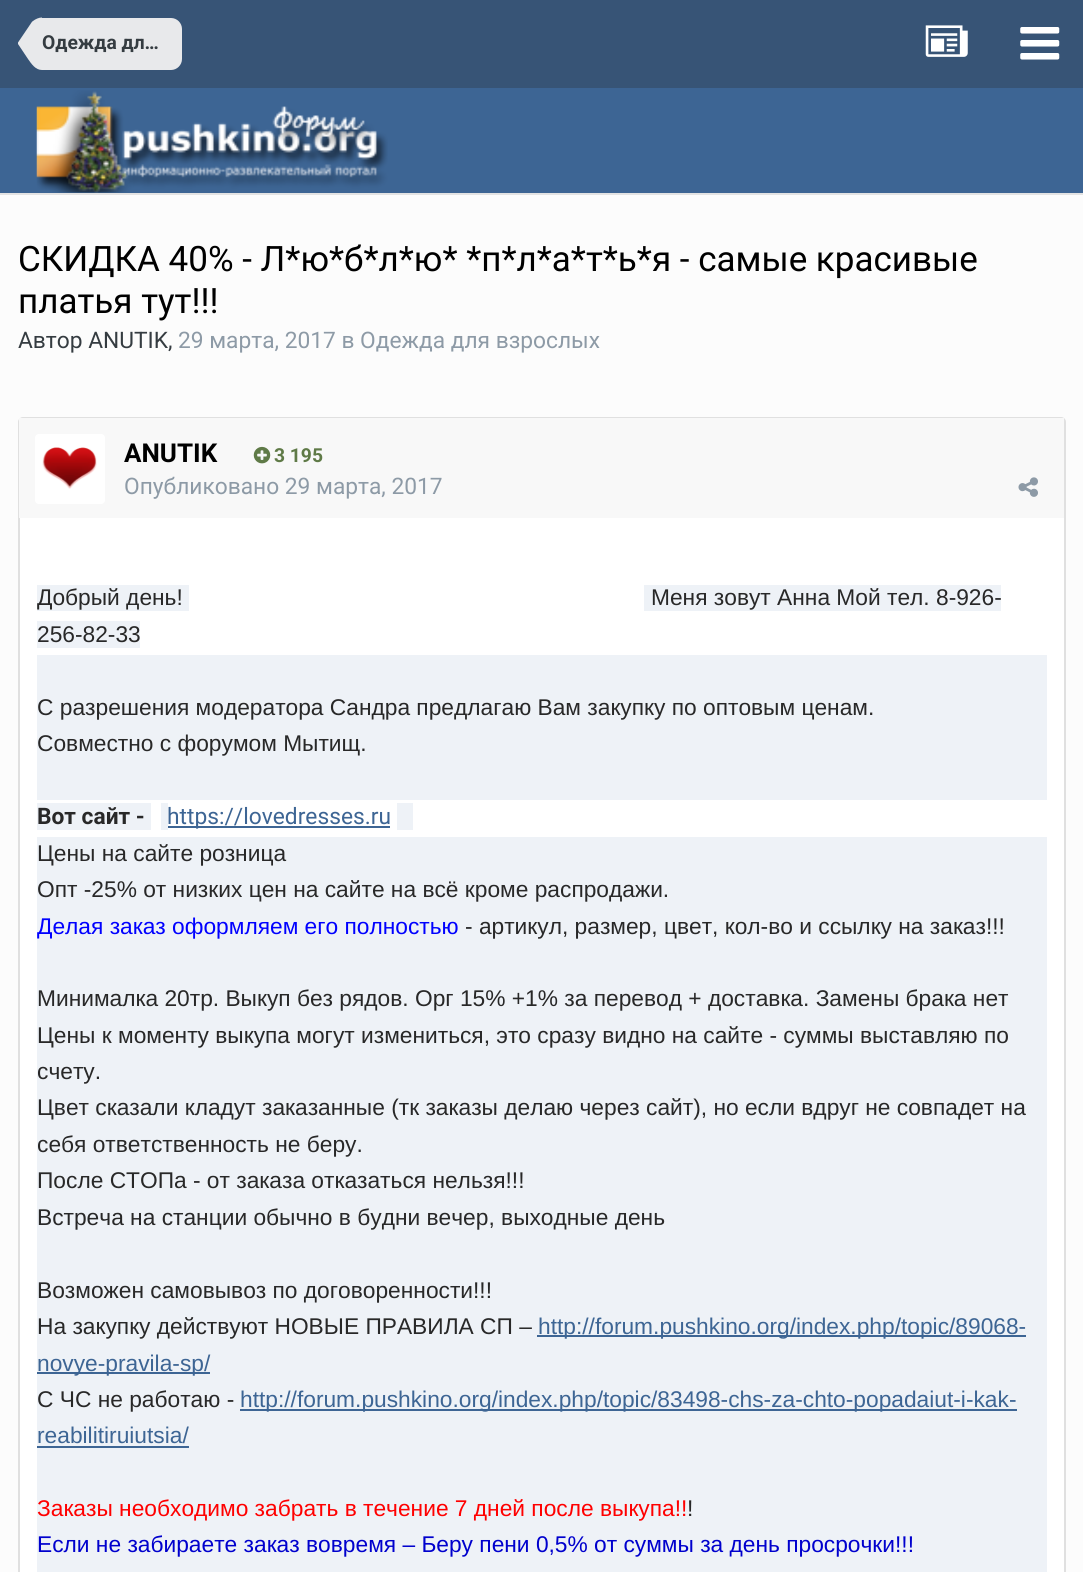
import math
import cairo

surface = cairo.ImageSurface(cairo.FORMAT_RGB24, 1083, 1572)
ctx = cairo.Context(surface)
options = cairo.FontOptions()
options.set_hint_metrics(cairo.HINT_METRICS_OFF)
options.set_hint_style(cairo.HINT_STYLE_NONE)
ctx.set_font_options(options)
ctx.set_miter_limit(4)


def set_color(code):
    ctx.set_source_rgb(*(v / 255 for v in bytes.fromhex(code[-6:])))


def draw_text(x, y, s, family, size, color, bold=False, italic=False):
    ctx.select_font_face(family, cairo.FONT_SLANT_ITALIC if italic else cairo.FONT_SLANT_NORMAL, cairo.FONT_WEIGHT_BOLD if bold else cairo.FONT_WEIGHT_NORMAL)
    ctx.set_font_size(size)
    set_color(color)
    ctx.move_to(x, y)
    ctx.show_text(s)


def fill_rect(x, y, w, h, color):
    set_color(color)
    ctx.rectangle(x, y, w, h)
    ctx.fill()


def rounded_rect(x, y, w, h, r):
    ctx.new_sub_path()
    for i, (u, v) in enumerate([(x + w - r, y + h - r), (x + r, y + h - r), (x + r, y + r), (x + w - r, y + r)]):
        ctx.arc(u, v, r, i * math.pi / 2, (i + 1) * math.pi / 2)
    ctx.close_path()


def draw_image(path, x, y, w, h):
    ctx.save()
    ctx.set_source_surface(cairo.ImageSurface.create_from_png(path), x, y)
    ctx.rectangle(x, y, w, h)
    ctx.fill()
    ctx.restore()


set_color("#fcfcfc")
ctx.paint()
fill_rect(0, 193, 1083, 2, "#e3e3e3")
fill_rect(0, 0, 1083, 88, "#375476")
set_color("#e8e9eb")
ctx.new_path()
ctx.move_to(42, 18)
ctx.line_to(171, 18)
ctx.curve_to(177, 18, 182, 23, 182, 29)
ctx.line_to(182, 59)
ctx.curve_to(182, 65, 177, 70, 171, 70)
ctx.line_to(42, 70)
ctx.close_path()
ctx.fill()
ctx.new_path()
ctx.move_to(18, 44)
ctx.line_to(42, 44)
ctx.line_to(42, 70)
ctx.curve_to(35.5, 70, 31.5, 64, 28, 59)
ctx.close_path()
ctx.move_to(42, 17.5)
ctx.line_to(42, 44)
ctx.line_to(18, 44)
ctx.line_to(18, 42.5)
ctx.line_to(30.5, 24)
ctx.curve_to(32, 22, 31.5, 22, 33, 21)
ctx.curve_to(35.5, 19, 39, 17.5, 42, 17.5)
ctx.close_path()
ctx.fill()
draw_text(42, 49, "Одежда дл…", "Roboto", 19.25, "#353c41", bold=True)
draw_image("assets/img1.png", 925, 25, 43, 32)
draw_image("assets/img2.png", 1020, 27, 40, 33)
fill_rect(0, 88, 1083, 105, "#3d6594")
draw_image("assets/img3.png", 36, 90, 352, 103)
draw_text(18, 271, "СКИДКА 40% - Л*ю*б*л*ю* *п*л*а*т*ь*я - самые красивые", "Roboto", 35, "#000000")
draw_text(18, 313, "платья тут!!!", "Roboto", 35, "#000000")
draw_text(18, 348, "Автор ANUTIK,", "Roboto", 22.75, "#353c41")
draw_text(178, 348, "29 марта, 2017 в Одежда для взрослых", "Roboto", 22.75, "#8d9aa6")
set_color("#ffffff")
rounded_rect(19, 418, 1046, 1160, 4)
ctx.fill_preserve()
set_color("#e0e0e0")
ctx.stroke()
fill_rect(19, 418, 1045, 100, "#f8f8f8")
set_color("#ffffff")
rounded_rect(35, 434, 70, 70, 4)
ctx.fill()
draw_image("assets/img4.png", 42, 447, 55, 42)
draw_text(124, 462, "ANUTIK", "Roboto", 26, "#000000", bold=True)
draw_image("assets/img5.png", 253, 446, 18, 18)
draw_text(274, 462, "3 195", "Roboto", 19.25, "#5f7a47", bold=True)
draw_text(124, 494, "Опубликовано 29 марта, 2017", "Roboto", 22.75, "#8d9aa6")
draw_image("assets/img6.png", 1018, 477, 20, 20)
fill_rect(37, 585, 152, 26, "#eef2f7")
draw_text(37, 605, "Добрый день!", "Liberation Sans", 22.75, "#282828")
fill_rect(644, 585, 357, 26, "#eef2f7")
draw_text(651, 605, "Меня зовут Анна Мой тел. 8-926-", "Liberation Sans", 22.75, "#282828")
fill_rect(37, 621, 103, 27, "#eef2f7")
draw_text(37, 642, "256-82-33", "Liberation Sans", 22.75, "#282828")
fill_rect(37, 655, 1010, 145, "#eef2f7")
draw_text(37, 715, "С разрешения модератора Сандра предлагаю Вам закупку по оптовым ценам.", "Liberation Sans", 22.75, "#282828")
draw_text(37, 751, "Совместно с форумом Мытищ.", "Liberation Sans", 22.75, "#282828")
fill_rect(37, 803, 114, 27, "#eef2f7")
draw_text(37, 824, "Вот сайт -", "Roboto", 22.75, "#282828", bold=True)
fill_rect(161, 803, 7, 27, "#eef2f7")
fill_rect(168, 826, 222, 2, "#3d6594")
draw_text(167, 824, "https://lovedresses.ru", "Roboto", 22.75, "#3d6594")
fill_rect(397, 803, 16, 27, "#eef2f7")
fill_rect(37, 837, 1010, 735, "#eef2f7")
draw_text(37, 861, "Цены на сайте розница", "Liberation Sans", 22.75, "#282828")
draw_text(37, 897, "Опт -25% от низких цен на сайте на всё кроме распродажи.", "Liberation Sans", 22.75, "#282828")
draw_text(37, 934, "Делая заказ оформляем его полностью", "Liberation Sans", 22.75, "#0000ff")
draw_text(465, 934, "- артикул, размер, цвет, кол-во и ссылку на заказ!!!", "Liberation Sans", 22.75, "#282828")
draw_text(37, 1006, "Минималка 20тр. Выкуп без рядов. Орг 15% +1% за перевод + доставка. Замены брака нет", "Liberation Sans", 22.75, "#282828")
draw_text(37, 1043, "Цены к моменту выкупа могут измениться, это сразу видно на сайте - суммы выставляю по", "Liberation Sans", 22.75, "#282828")
draw_text(37, 1079, "счету.", "Liberation Sans", 22.75, "#282828")
draw_text(37, 1115, "Цвет сказали кладут заказанные (тк заказы делаю через сайт), но если вдруг не совпадет на", "Liberation Sans", 22.75, "#282828")
draw_text(37, 1152, "себя ответственность не беру.", "Liberation Sans", 22.75, "#282828")
draw_text(37, 1188, "После СТОПа - от заказа отказаться нельзя!!!", "Liberation Sans", 22.75, "#282828")
draw_text(37, 1225, "Встреча на станции обычно в будни вечер, выходные день", "Liberation Sans", 22.75, "#282828")
draw_text(37, 1298, "Возможен самовывоз по договоренности!!!", "Liberation Sans", 22.75, "#282828")
draw_text(37, 1334, "На закупку действуют НОВЫЕ ПРАВИЛА СП –", "Liberation Sans", 22.75, "#282828")
fill_rect(537, 1335, 489, 2, "#3d6594")
draw_text(538, 1334, "http://forum.pushkino.org/index.php/topic/89068-", "Liberation Sans", 22.75, "#3d6594")
fill_rect(37, 1372, 173, 2, "#3d6594")
draw_text(37, 1371, "novye-pravila-sp/", "Liberation Sans", 22.75, "#3d6594")
draw_text(37, 1407, "С ЧС не работаю -", "Liberation Sans", 22.75, "#282828")
fill_rect(240, 1409, 777, 2, "#3d6594")
draw_text(240, 1407, "http://forum.pushkino.org/index.php/topic/83498-chs-za-chto-popadaiut-i-kak-", "Liberation Sans", 22.75, "#3d6594")
draw_text(37, 1443, "reabilitiruiutsia/", "Liberation Sans", 22.75, "#3d6594")
fill_rect(37, 1446, 152, 2, "#3d6594")
draw_text(37, 1516, "Заказы необходимо забрать в течение 7 дней после выкупа!!", "Liberation Sans", 22.75, "#ff0000")
draw_text(687, 1516, "!", "Liberation Sans", 22.75, "#282828")
draw_text(37, 1552, "Если не забираете заказ вовремя – Беру пени 0,5% от суммы за день просрочки!!!", "Liberation Sans", 22.75, "#0000cd")
surface.write_to_png("output.png")
